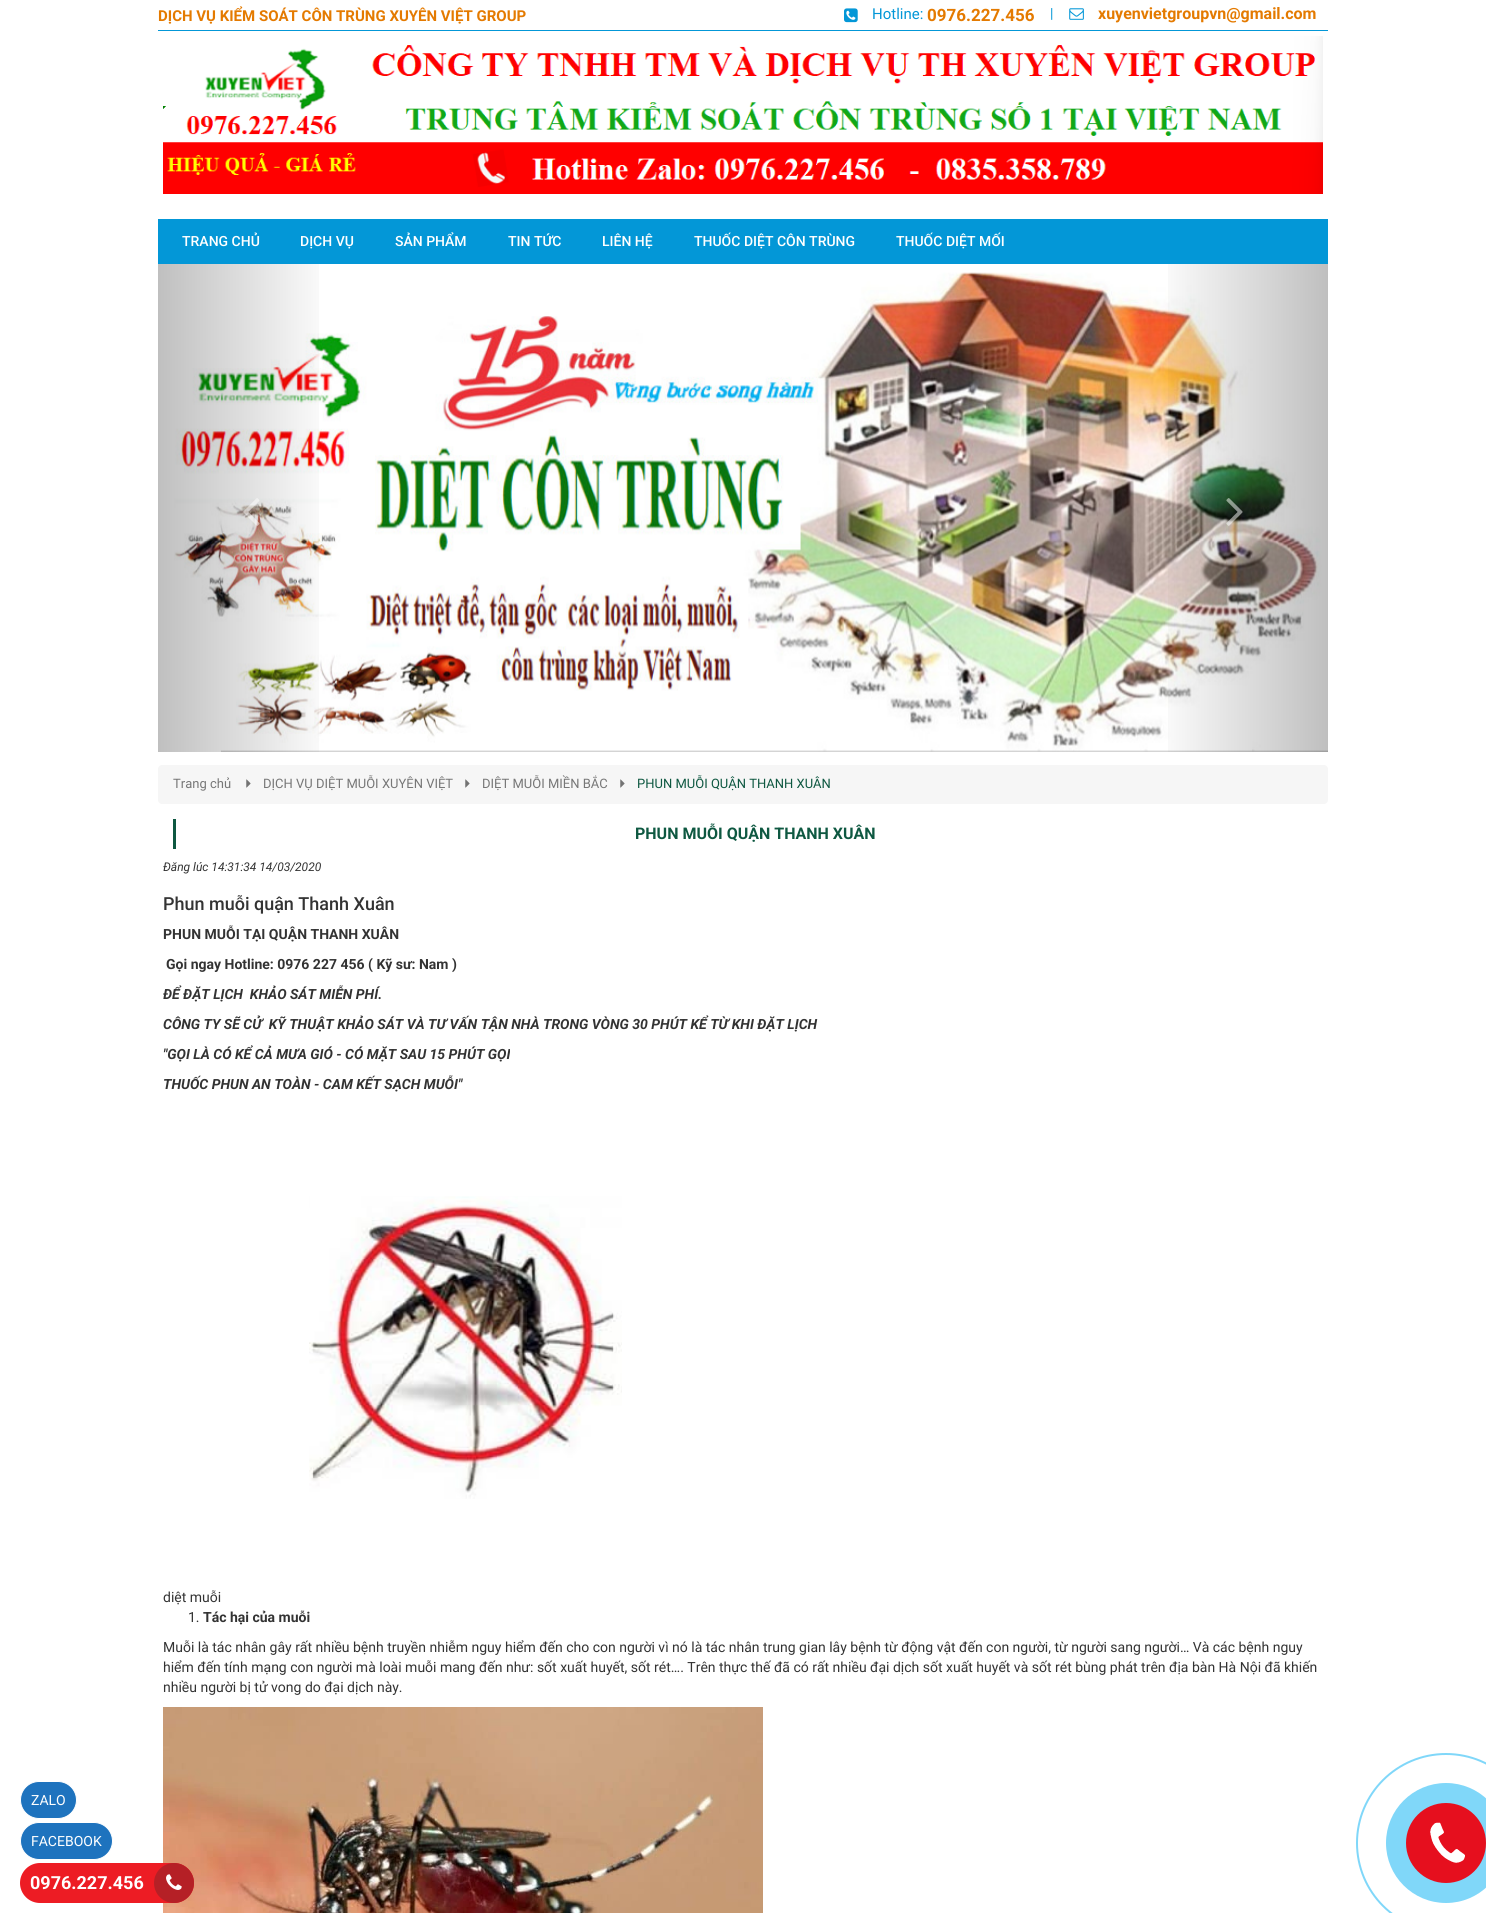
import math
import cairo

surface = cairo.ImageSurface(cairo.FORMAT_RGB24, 1486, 1913)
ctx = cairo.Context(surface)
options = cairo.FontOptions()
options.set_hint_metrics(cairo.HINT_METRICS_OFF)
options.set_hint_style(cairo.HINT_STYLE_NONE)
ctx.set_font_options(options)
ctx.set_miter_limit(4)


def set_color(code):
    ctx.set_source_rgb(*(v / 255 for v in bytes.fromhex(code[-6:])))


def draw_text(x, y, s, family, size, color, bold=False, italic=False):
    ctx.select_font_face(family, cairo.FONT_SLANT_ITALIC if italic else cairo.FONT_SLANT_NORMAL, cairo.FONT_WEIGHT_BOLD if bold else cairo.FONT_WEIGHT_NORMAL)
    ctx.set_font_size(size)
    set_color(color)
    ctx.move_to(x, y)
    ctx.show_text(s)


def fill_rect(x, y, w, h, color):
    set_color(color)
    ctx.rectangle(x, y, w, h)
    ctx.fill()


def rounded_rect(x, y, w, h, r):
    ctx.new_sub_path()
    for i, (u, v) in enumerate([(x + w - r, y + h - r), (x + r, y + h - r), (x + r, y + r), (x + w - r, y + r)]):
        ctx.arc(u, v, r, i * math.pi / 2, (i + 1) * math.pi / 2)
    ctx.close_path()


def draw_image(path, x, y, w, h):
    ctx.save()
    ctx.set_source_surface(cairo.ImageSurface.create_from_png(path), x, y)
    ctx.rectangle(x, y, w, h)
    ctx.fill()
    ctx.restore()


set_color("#ffffff")
ctx.paint()
fill_rect(158, 30, 1170, 1, "#0397d7")
draw_text(158, 21, "DỊCH VỤ KIỂM SOÁT CÔN TRÙNG XUYÊN VIỆT GROUP", "Roboto", 15, "#e47a00", bold=True)
draw_image("assets/img1.png", 844, 8, 14, 15)
draw_text(872, 19, "Hotline:", "Roboto", 15, "#0397d7")
draw_text(927, 21, "0976.227.456", "Roboto", 17, "#e47a00", bold=True)
draw_text(1050, 18, "|", "Roboto", 14, "#0397d7")
draw_image("assets/img2.png", 1069, 8, 15, 12)
draw_text(1098, 19, "xuyenvietgroupvn@gmail.com", "Roboto", 16, "#e47a00", bold=True)
draw_image("assets/img3.png", 163, 36, 1160, 158)
fill_rect(158, 219, 1170, 45, "#0397d7")
draw_text(182, 246, "TRANG CHỦ", "Roboto Medium", 14, "#ffffff")
draw_text(300, 246, "DỊCH VỤ", "Roboto Medium", 14, "#ffffff")
draw_text(395, 246, "SẢN PHẨM", "Roboto Medium", 14, "#ffffff")
draw_text(508, 246, "TIN TỨC", "Roboto Medium", 14, "#ffffff")
draw_text(602, 246, "LIÊN HỆ", "Roboto Medium", 14, "#ffffff")
draw_text(694, 246, "THUỐC DIỆT CÔN TRÙNG", "Roboto Medium", 14, "#ffffff")
draw_text(896, 246, "THUỐC DIỆT MỐI", "Roboto Medium", 14, "#ffffff")
draw_image("assets/img6.png", 174, 272, 1154, 480)
gradient = cairo.LinearGradient(158, 508, 334, 508)
gradient.add_color_stop_rgba(0, 0, 0, 0, 0.25)
gradient.add_color_stop_rgba(1, 0, 0, 0, 0)
ctx.set_source(gradient)
ctx.rectangle(158, 264, 161, 488)
ctx.fill()
draw_image("assets/img4.png", 243, 498, 17, 28)
gradient = cairo.LinearGradient(1153, 508, 1328, 508)
gradient.add_color_stop_rgba(0, 0, 0, 0, 0)
gradient.add_color_stop_rgba(1, 0, 0, 0, 0.25)
ctx.set_source(gradient)
ctx.rectangle(1168, 264, 160, 488)
ctx.fill()
draw_image("assets/img5.png", 1226, 498, 17, 28)
set_color("#f6f6f6")
rounded_rect(158, 765, 1170, 39, 4)
ctx.fill()
draw_text(173, 788, "Trang chủ", "Roboto", 13, "#777777")
draw_image("assets/img7.png", 246, 779, 5, 9)
draw_text(263, 788, "DỊCH VỤ DIỆT MUỖI XUYÊN VIỆT", "Roboto", 13, "#777777")
draw_image("assets/img7.png", 465, 779, 5, 9)
draw_text(482, 788, "DIỆT MUỖI MIỀN BẮC", "Roboto", 13, "#777777")
draw_image("assets/img7.png", 620, 779, 5, 9)
draw_text(637, 788, "PHUN MUỖI QUẬN THANH XUÂN", "Roboto", 13, "#0e5841")
fill_rect(173, 819, 3, 30, "#0e5841")
draw_text(635, 839, "PHUN MUỖI QUẬN THANH XUÂN", "Roboto", 16, "#0e5841", bold=True)
draw_text(163, 871, "Đăng lúc 14:31:34 14/03/2020", "Roboto", 12, "#333333", italic=True)
draw_text(163, 910, "Phun muỗi quận Thanh Xuân", "Roboto Medium", 18, "#333333")
draw_text(163, 939, "PHUN MUỖI TẠI QUẬN THANH XUÂN", "Roboto", 14, "#333333", bold=True)
draw_text(166, 969, "Gọi ngay Hotline: 0976 227 456 ( Kỹ sư: Nam )", "Roboto", 14, "#333333", bold=True)
draw_text(163, 999, "ĐỂ ĐẶT LỊCH  KHẢO SÁT MIỄN PHÍ.", "Roboto", 14, "#333333", bold=True, italic=True)
draw_text(163, 1029, "CÔNG TY SẼ CỬ  KỸ THUẬT KHẢO SÁT VÀ TƯ VẤN TẬN NHÀ TRONG VÒNG 30 PHÚT KỂ TỪ KHI ĐẶT LỊCH", "Roboto", 14, "#333333", bold=True, italic=True)
draw_text(163, 1059, "\"GỌI LÀ CÓ KỂ CẢ MƯA GIÓ - CÓ MẶT SAU 15 PHÚT GỌI", "Roboto", 14, "#333333", bold=True, italic=True)
draw_text(163, 1089, "THUỐC PHUN AN TOÀN - CAM KẾT SẠCH MUỖI\"", "Roboto", 14, "#333333", bold=True, italic=True)
draw_image("assets/img8.png", 309, 1196, 313, 303)
draw_text(163, 1602, "diệt muỗi", "Roboto", 14, "#333333")
draw_text(188, 1622, "1.", "Roboto", 14, "#333333")
draw_text(203, 1622, "Tác hại của muỗi", "Roboto", 14, "#333333", bold=True)
draw_text(163, 1652, "Muỗi là tác nhân gây rất nhiều bệnh truyền nhiễm nguy hiểm đến cho con người vì nó là tác nhân trung gian lây bệnh từ động vật đến con người, từ người sang người… Và các bệnh nguy", "Roboto", 14, "#333333")
draw_text(163, 1672, "hiểm đến tính mạng con người mà loài muỗi mang đến như: sốt xuất huyết, sốt rét…. Trên thực thế đã có rất nhiều đại dịch sốt xuất huyết và sốt rét bùng phát trên địa bàn Hà Nội đã khiến", "Roboto", 14, "#333333")
draw_text(163, 1692, "nhiều người bị tử vong do đại dịch này.", "Roboto", 14, "#333333")
draw_image("assets/img9.png", 163, 1707, 600, 206)
set_color("#1e73be")
rounded_rect(20.5, 1781.5, 56, 37, 18.5)
ctx.fill_preserve()
set_color("#ffffff")
ctx.set_line_width(1)
ctx.stroke()
draw_text(31, 1805, "ZALO", "Roboto", 14, "#ffffff")
ctx.new_path()
ctx.arc(1446, 1843, 89, 0, 2 * math.pi)
set_color("#80d7f9")
ctx.set_line_width(2)
ctx.stroke()
ctx.arc(1446, 1843, 60, 0, 2 * math.pi)
ctx.fill()
set_color("#e60f1e")
ctx.arc(1446, 1843, 40, 0, 2 * math.pi)
ctx.fill()
draw_image("assets/img10.png", 1430, 1822, 35, 41)
set_color("#1e73be")
rounded_rect(20.5, 1822.5, 92, 37, 18.5)
ctx.fill_preserve()
set_color("#ffffff")
ctx.set_line_width(1)
ctx.stroke()
draw_text(31, 1846, "FACEBOOK", "Roboto", 14, "#ffffff")
set_color("#ed1c24")
rounded_rect(20, 1863, 174, 40, 20)
ctx.fill()
draw_text(30, 1889, "0976.227.456", "Roboto", 18, "#ffffff", bold=True)
set_color("#b52026")
ctx.new_path()
ctx.arc(174, 1883, 20, 0, 2 * math.pi)
ctx.fill()
draw_image("assets/img11.png", 166, 1874, 16, 16)
surface.write_to_png("output.png")
